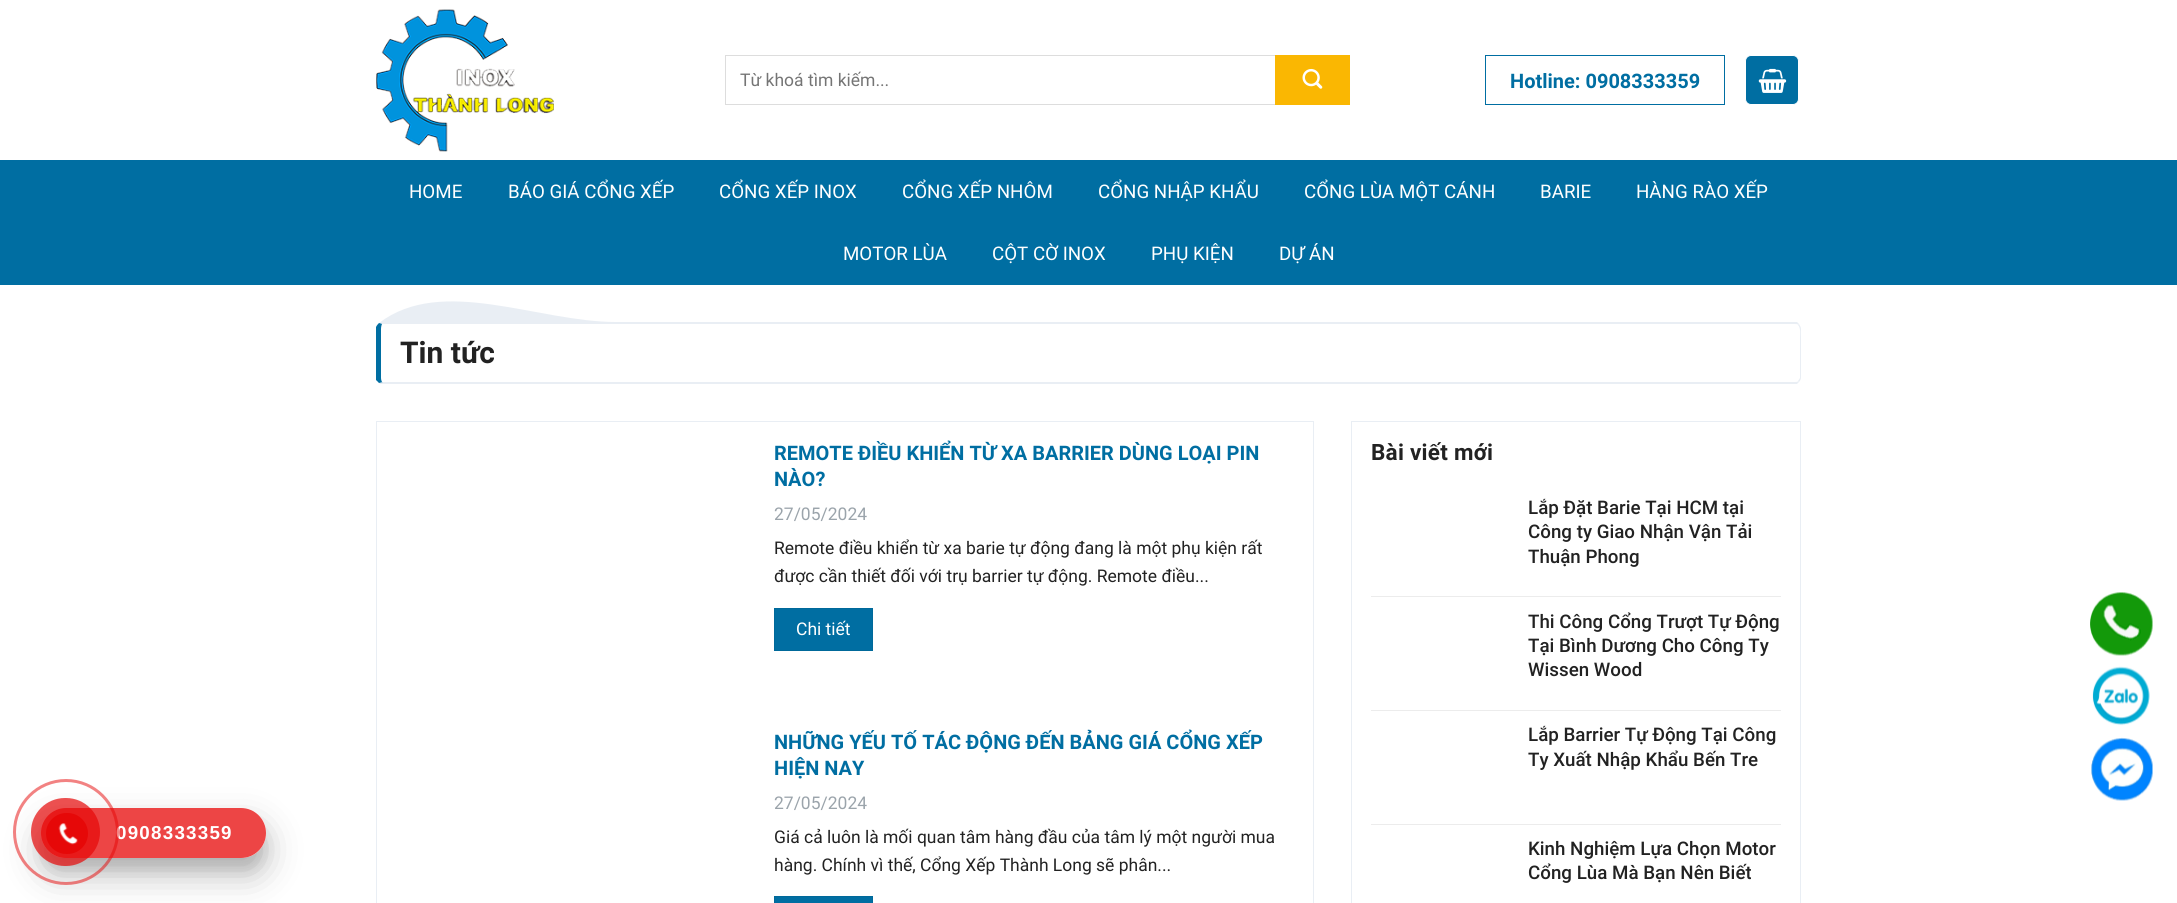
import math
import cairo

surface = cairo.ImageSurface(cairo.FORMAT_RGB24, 2177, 903)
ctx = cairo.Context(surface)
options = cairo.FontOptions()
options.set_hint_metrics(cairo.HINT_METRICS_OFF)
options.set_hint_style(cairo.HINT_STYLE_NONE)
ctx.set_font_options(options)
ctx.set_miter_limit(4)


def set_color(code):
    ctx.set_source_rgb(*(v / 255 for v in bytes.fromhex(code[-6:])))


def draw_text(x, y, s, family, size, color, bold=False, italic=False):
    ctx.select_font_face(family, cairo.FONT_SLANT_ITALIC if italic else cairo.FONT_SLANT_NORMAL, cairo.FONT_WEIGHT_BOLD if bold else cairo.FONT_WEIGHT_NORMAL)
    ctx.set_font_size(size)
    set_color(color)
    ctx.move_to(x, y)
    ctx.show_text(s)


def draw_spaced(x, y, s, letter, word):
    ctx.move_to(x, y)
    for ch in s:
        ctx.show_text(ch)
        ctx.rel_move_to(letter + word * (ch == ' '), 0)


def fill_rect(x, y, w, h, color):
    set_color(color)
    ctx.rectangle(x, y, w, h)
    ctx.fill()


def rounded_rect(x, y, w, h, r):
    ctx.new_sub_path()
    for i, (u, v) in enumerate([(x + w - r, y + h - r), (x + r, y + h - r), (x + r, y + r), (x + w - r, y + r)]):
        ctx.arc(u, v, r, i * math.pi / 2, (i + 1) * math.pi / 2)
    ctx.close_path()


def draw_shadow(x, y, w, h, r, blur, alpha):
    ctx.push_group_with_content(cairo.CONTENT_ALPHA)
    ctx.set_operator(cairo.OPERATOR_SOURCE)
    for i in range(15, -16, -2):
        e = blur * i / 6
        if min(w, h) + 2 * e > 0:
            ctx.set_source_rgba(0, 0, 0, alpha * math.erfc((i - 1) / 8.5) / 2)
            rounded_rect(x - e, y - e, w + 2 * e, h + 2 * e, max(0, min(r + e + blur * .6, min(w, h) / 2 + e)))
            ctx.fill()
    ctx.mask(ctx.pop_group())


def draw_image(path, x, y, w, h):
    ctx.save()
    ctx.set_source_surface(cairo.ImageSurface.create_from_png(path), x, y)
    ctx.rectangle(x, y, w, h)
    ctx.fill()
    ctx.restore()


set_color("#ffffff")
ctx.paint()
draw_image("assets/img1.png", 376, 9, 178, 143)
fill_rect(725, 55, 550, 1, "#dddddd")
fill_rect(725, 104, 550, 1, "#dddddd")
fill_rect(725, 55, 1, 50, "#dddddd")
draw_text(740, 86, "Từ khoá tìm kiếm...", "Roboto", 17.5, "#757575")
fill_rect(1275, 55, 75, 50, "#fab702")
draw_image("assets/img2.png", 1302, 68, 21, 21)
ctx.rectangle(1485.5, 55.5, 239, 49)
set_color("#006ea2")
ctx.set_line_width(1)
ctx.stroke()
draw_text(1510, 88, "Hotline: 0908333359", "Roboto", 20, "#006ea2", bold=True)
rounded_rect(1745.5, 55.5, 53, 49, 5.5)
ctx.fill_preserve()
set_color("#ffffff")
ctx.stroke()
draw_image("assets/img3.png", 1758, 68, 29, 25)
fill_rect(0, 160, 2177, 125, "#006ea2")
draw_text(409, 198, "HOME", "Roboto", 18.75, "#ffffff")
draw_text(508, 198, "BÁO GIÁ CỔNG XẾP", "Roboto", 18.75, "#ffffff")
draw_text(719, 198, "CỔNG XẾP INOX", "Roboto", 18.75, "#ffffff")
draw_text(902, 198, "CỔNG XẾP NHÔM", "Roboto", 18.75, "#ffffff")
draw_text(1098, 198, "CỔNG NHẬP KHẨU", "Roboto", 18.75, "#ffffff")
draw_text(1304, 198, "CỔNG LÙA MỘT CÁNH", "Roboto", 18.75, "#ffffff")
draw_text(1540, 198, "BARIE", "Roboto", 18.75, "#ffffff")
draw_text(1636, 198, "HÀNG RÀO XẾP", "Roboto", 18.75, "#ffffff")
draw_text(843, 260, "MOTOR LÙA", "Roboto", 18.75, "#ffffff")
draw_text(992, 260, "CỘT CỜ INOX", "Roboto", 18.75, "#ffffff")
draw_text(1151, 260, "PHỤ KIỆN", "Roboto", 18.75, "#ffffff")
draw_text(1279, 260, "DỰ ÁN", "Roboto", 18.75, "#ffffff")
set_color("#e9eef4")
ctx.new_path()
ctx.move_to(379, 323)
ctx.curve_to(442, 275, 537, 322, 616, 322)
ctx.line_to(1797, 322)
ctx.line_to(1799, 324)
ctx.line_to(1798, 325)
ctx.curve_to(1798, 324, 1796, 324, 1795, 324)
ctx.line_to(382, 324)
ctx.close_path()
ctx.fill()
ctx.new_path()
ctx.move_to(1799, 324)
ctx.curve_to(1800, 326, 1801, 327, 1801, 329)
ctx.line_to(1801, 378)
ctx.curve_to(1801, 379, 1800, 381, 1799, 382)
ctx.line_to(1798, 381)
ctx.line_to(1800, 378)
ctx.line_to(1800, 337)
ctx.curve_to(1800, 335, 1801, 328, 1798, 325)
ctx.close_path()
ctx.fill()
ctx.new_path()
ctx.move_to(380, 384)
ctx.line_to(379, 383)
ctx.line_to(383, 382)
ctx.line_to(1795, 382)
ctx.curve_to(1796, 382, 1798, 382, 1798, 381)
ctx.line_to(1799, 382)
ctx.line_to(1797, 384)
ctx.close_path()
ctx.fill()
set_color("#006ea2")
ctx.new_path()
ctx.move_to(382, 324)
ctx.curve_to(382, 324, 381, 326, 381, 329)
ctx.line_to(381, 378)
ctx.curve_to(381, 380, 382, 382, 382, 382)
ctx.line_to(383, 382)
ctx.line_to(379, 383)
ctx.curve_to(378, 382, 377, 381, 376, 380)
ctx.line_to(376, 327)
ctx.curve_to(377, 325, 378, 324, 379, 323)
ctx.close_path()
ctx.fill()
draw_text(400, 363, "Tin tức", "Roboto", 30, "#222222", bold=True)
ctx.rectangle(376.5, 421.5, 937, 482)
set_color("#e9eef4")
ctx.stroke()
draw_text(774, 460, "REMOTE ĐIỀU KHIỂN TỪ XA BARRIER DÙNG LOẠI PIN", "Roboto", 20, "#006ea2", bold=True)
draw_text(774, 486, "NÀO?", "Roboto", 20, "#006ea2", bold=True)
draw_text(774, 520, "27/05/2024", "Roboto", 17.5, "#9ba4ab")
draw_text(774, 554, "Remote điều khiển từ xa barie tự động đang là một phụ kiện rất", "Roboto", 17.5, "#222222")
draw_text(774, 582, "được cần thiết đối với trụ barrier tự động. Remote điều...", "Roboto", 17.5, "#222222")
set_color("#006ea2")
ctx.rectangle(774.5, 608.5, 98, 42)
ctx.fill_preserve()
set_color("#00699a")
ctx.stroke()
draw_text(796, 635, "Chi tiết", "Roboto", 17.5, "#ffffff")
draw_text(774, 749, "NHỮNG YẾU TỐ TÁC ĐỘNG ĐẾN BẢNG GIÁ CỔNG XẾP", "Roboto", 20, "#006ea2", bold=True)
draw_text(774, 775, "HIỆN NAY", "Roboto", 20, "#006ea2", bold=True)
draw_text(774, 809, "27/05/2024", "Roboto", 17.5, "#9ba4ab")
draw_text(774, 843, "Giá cả luôn là mối quan tâm hàng đầu của tâm lý một người mua", "Roboto", 17.5, "#222222")
draw_text(774, 871, "hàng. Chính vì thế, Cổng Xếp Thành Long sẽ phân...", "Roboto", 17.5, "#222222")
set_color("#006ea2")
ctx.rectangle(774.5, 896.5, 98, 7)
ctx.fill_preserve()
set_color("#00699a")
ctx.stroke()
ctx.rectangle(1351.5, 421.5, 449, 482)
set_color("#e9eef4")
ctx.stroke()
ctx.select_font_face("Roboto", cairo.FONT_SLANT_NORMAL, cairo.FONT_WEIGHT_BOLD)
ctx.set_font_size(22.5)
set_color("#222222")
draw_spaced(1371, 460, "Bài viết mới", 0.25, 0)
draw_text(1528, 514, "Lắp Đặt Barie Tại HCM tại", "Roboto Medium", 18.75, "#222222")
draw_text(1528, 538, "Công ty Giao Nhận Vận Tải", "Roboto Medium", 18.75, "#222222")
draw_text(1528, 563, "Thuận Phong", "Roboto Medium", 18.75, "#222222")
fill_rect(1371, 596, 410, 1, "#ececec")
draw_text(1528, 628, "Thi Công Cổng Trượt Tự Động", "Roboto Medium", 18.75, "#222222")
draw_text(1528, 652, "Tại Bình Dương Cho Công Ty", "Roboto Medium", 18.75, "#222222")
draw_text(1528, 676, "Wissen Wood", "Roboto Medium", 18.75, "#222222")
fill_rect(1371, 710, 410, 1, "#ececec")
draw_text(1528, 741, "Lắp Barrier Tự Động Tại Công", "Roboto Medium", 18.75, "#222222")
draw_text(1528, 766, "Ty Xuất Nhập Khẩu Bến Tre", "Roboto Medium", 18.75, "#222222")
fill_rect(1371, 824, 410, 1, "#ececec")
draw_text(1528, 855, "Kinh Nghiệm Lựa Chọn Motor", "Roboto Medium", 18.75, "#222222")
draw_text(1528, 879, "Cổng Lùa Mà Bạn Nên Biết", "Roboto Medium", 18.75, "#222222")
draw_image("assets/img4.png", 2090, 592, 63, 64)
draw_image("assets/img5.png", 2092, 666, 58, 60)
draw_image("assets/img6.png", 2091, 737, 62, 64)
ctx.save()
ctx.set_fill_rule(cairo.FILL_RULE_EVEN_ODD)
ctx.new_path()
ctx.move_to(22, 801)
ctx.line_to(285, 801)
ctx.line_to(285, 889)
ctx.line_to(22, 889)
ctx.close_path()
ctx.move_to(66, 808)
ctx.line_to(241, 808)
ctx.curve_to(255, 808, 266, 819, 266, 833)
ctx.curve_to(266, 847, 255, 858, 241, 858)
ctx.line_to(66, 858)
ctx.curve_to(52, 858, 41, 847, 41, 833)
ctx.curve_to(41, 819, 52, 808, 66, 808)
ctx.close_path()
ctx.clip()
set_color("#000000")
draw_shadow(41, 820, 225, 50, 25, 6, 0.1)
ctx.restore()
ctx.save()
ctx.set_fill_rule(cairo.FILL_RULE_EVEN_ODD)
ctx.new_path()
ctx.move_to(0, 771)
ctx.line_to(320, 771)
ctx.line_to(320, 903)
ctx.line_to(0, 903)
ctx.close_path()
ctx.move_to(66, 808)
ctx.line_to(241, 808)
ctx.curve_to(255, 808, 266, 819, 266, 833)
ctx.curve_to(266, 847, 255, 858, 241, 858)
ctx.line_to(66, 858)
ctx.curve_to(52, 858, 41, 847, 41, 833)
ctx.curve_to(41, 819, 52, 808, 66, 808)
ctx.close_path()
ctx.clip()
set_color("#000000")
draw_shadow(41, 825, 225, 50, 25, 17.5, 0.25)
ctx.restore()
ctx.set_source_rgba(0.902, 0.031, 0.031, 0.75)
rounded_rect(41, 808, 225, 50, 25)
ctx.fill()
ctx.select_font_face("Liberation Sans", cairo.FONT_SLANT_NORMAL, cairo.FONT_WEIGHT_BOLD)
set_color("#ffffff")
draw_spaced(116, 839, "0908333359", 1.25, 0)
ctx.new_path()
ctx.arc(66, 832, 51.5, 0, 2 * math.pi)
ctx.set_source_rgba(0.902, 0.031, 0.031, 0.5)
ctx.set_line_width(3)
ctx.stroke()
ctx.set_source_rgba(0.902, 0.031, 0.031, 0.7)
rounded_rect(31, 798, 69, 68, 34)
ctx.fill()
set_color("#e60808")
rounded_rect(46, 813, 42, 41, 20.5)
ctx.fill()
draw_image("assets/img7.png", 58, 823, 20, 22)
surface.write_to_png("output.png")
